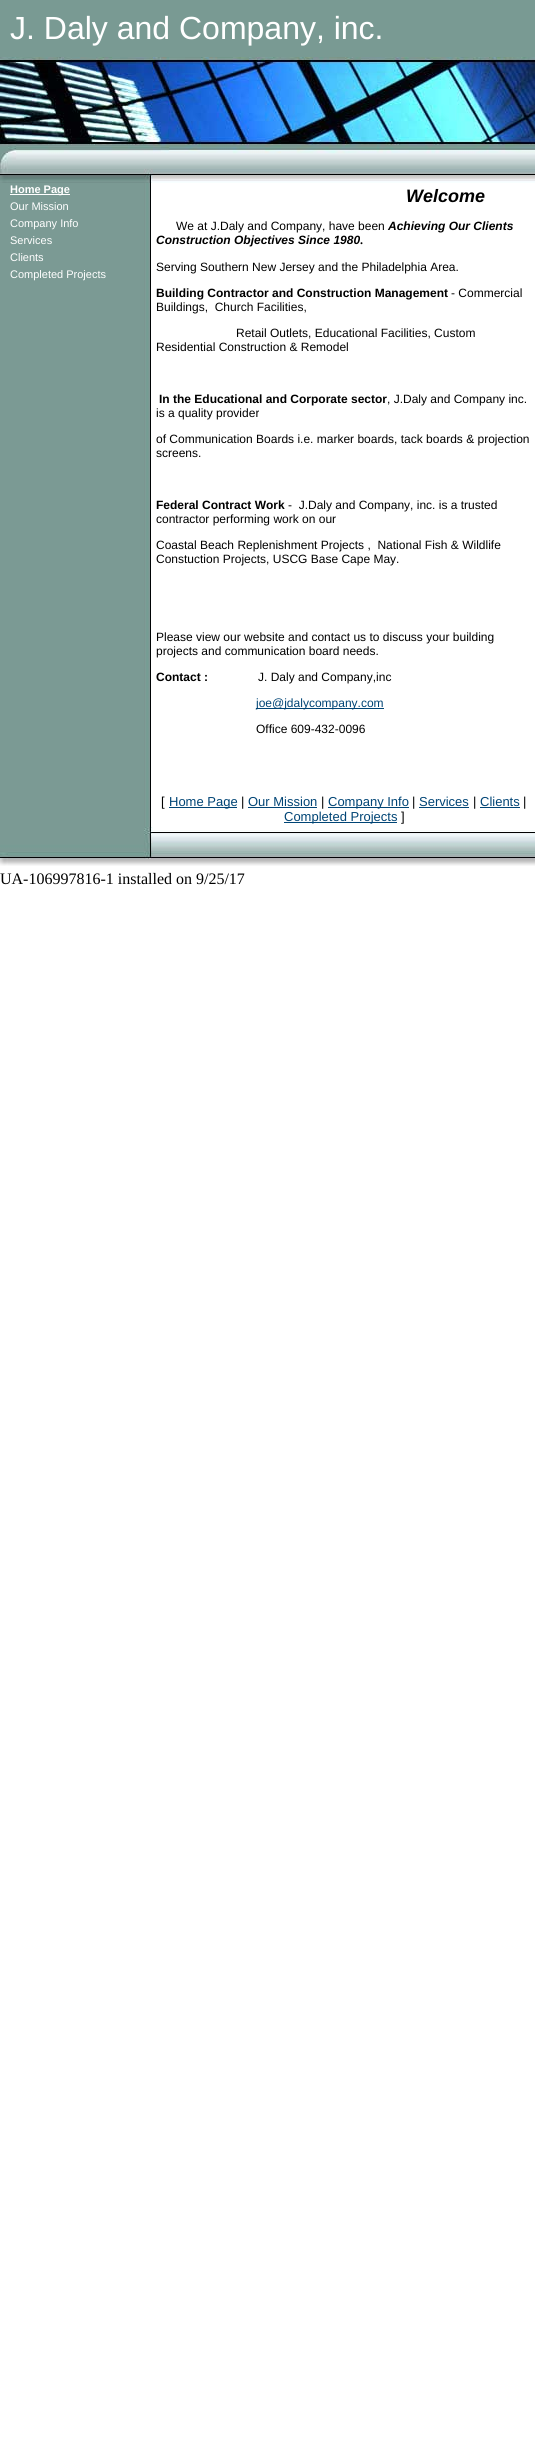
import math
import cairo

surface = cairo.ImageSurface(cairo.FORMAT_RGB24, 535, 2444)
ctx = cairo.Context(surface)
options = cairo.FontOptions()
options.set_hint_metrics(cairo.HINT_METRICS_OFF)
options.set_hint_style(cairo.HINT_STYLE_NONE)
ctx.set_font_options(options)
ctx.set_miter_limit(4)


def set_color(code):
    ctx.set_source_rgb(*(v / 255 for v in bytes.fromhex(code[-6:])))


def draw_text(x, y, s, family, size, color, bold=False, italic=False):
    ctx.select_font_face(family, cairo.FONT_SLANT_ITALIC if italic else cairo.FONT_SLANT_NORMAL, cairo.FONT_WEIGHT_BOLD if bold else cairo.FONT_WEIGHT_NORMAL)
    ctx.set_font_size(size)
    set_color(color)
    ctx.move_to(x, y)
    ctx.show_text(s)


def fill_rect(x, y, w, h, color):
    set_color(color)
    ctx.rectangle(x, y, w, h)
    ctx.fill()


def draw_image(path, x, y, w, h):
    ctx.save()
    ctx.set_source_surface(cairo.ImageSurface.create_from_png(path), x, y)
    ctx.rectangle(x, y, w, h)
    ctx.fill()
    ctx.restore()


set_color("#ffffff")
ctx.paint()
fill_rect(0, 0, 535, 57, "#799a93")
draw_text(10, 39, "J. Daly and Company, inc.", "Liberation Sans", 32, "#ffffff")
draw_image("assets/img1.png", 0, 57, 153, 126)
draw_image("assets/img2.png", 153, 57, 382, 126)
draw_image("assets/img3.png", 153, 65, 15, 80)
draw_image("assets/img4.png", 0, 183, 151, 644)
fill_rect(10, 194, 60, 1, "#ffffff")
draw_text(10, 193, "Home Page", "Liberation Sans", 11, "#ffffff", bold=True)
draw_text(10, 210, "Our Mission", "Liberation Sans", 11, "#ffffff")
draw_text(10, 227, "Company Info", "Liberation Sans", 11, "#ffffff")
draw_text(10, 244, "Services", "Liberation Sans", 11, "#ffffff")
draw_text(10, 261, "Clients", "Liberation Sans", 11, "#ffffff")
draw_text(10, 278, "Completed Projects", "Liberation Sans", 11, "#ffffff")
draw_text(406, 202, "Welcome", "Liberation Sans", 18, "#000000", bold=True, italic=True)
draw_text(176, 230, "We at J.Daly and Company, have been", "Liberation Sans", 12, "#000000")
draw_text(388, 230, "Achieving Our Clients", "Liberation Sans", 12, "#000000", bold=True, italic=True)
draw_text(156, 244, "Construction Objectives Since 1980", "Liberation Sans", 12, "#000000", bold=True, italic=True)
draw_text(360, 244, ".", "Liberation Serif", 12, "#000000", bold=True)
draw_text(156, 271, "Serving Southern New Jersey and the Philadelphia Area.", "Liberation Sans", 12, "#000000")
draw_text(156, 297, "Building Contractor and Construction Management", "Liberation Sans", 12, "#000000", bold=True)
draw_text(451, 297, "- Commercial", "Liberation Sans", 12, "#000000")
draw_text(156, 311, "Buildings,  Church Facilities,", "Liberation Sans", 12, "#000000")
draw_text(236, 337, "Retail Outlets, Educational Facilities, Custom", "Liberation Sans", 12, "#000000")
draw_text(156, 351, "Residential Construction & Remodel", "Liberation Sans", 12, "#000000")
draw_text(159, 403, "In the Educational and Corporate sector", "Liberation Sans", 12, "#000000", bold=True)
draw_text(387, 403, ", J.Daly and Company inc.", "Liberation Sans", 12, "#000000")
draw_text(156, 417, "is a quality provider", "Liberation Sans", 12, "#000000")
draw_text(156, 443, "of Communication Boards i.e. marker boards, tack boards & projection", "Liberation Sans", 12, "#000000")
draw_text(156, 457, "screens.", "Liberation Sans", 12, "#000000")
draw_text(156, 509, "Federal Contract Work", "Liberation Sans", 12, "#000000", bold=True)
draw_text(288, 509, "-  J.Daly and Company, inc. is a trusted", "Liberation Sans", 12, "#000000")
draw_text(156, 523, "contractor performing work on our", "Liberation Sans", 12, "#000000")
draw_text(156, 549, "Coastal Beach Replenishment Projects ,  National Fish & Wildlife", "Liberation Sans", 12, "#000000")
draw_text(156, 563, "Constuction Projects, USCG Base Cape May.", "Liberation Sans", 12, "#000000")
draw_text(156, 641, "Please view our website and contact us to discuss your building", "Liberation Sans", 12, "#000000")
draw_text(156, 655, "projects and communication board needs.", "Liberation Sans", 12, "#000000")
draw_text(156, 681, "Contact :", "Liberation Sans", 12, "#000000", bold=True)
draw_text(258, 681, "J. Daly and Company,inc", "Liberation Sans", 12, "#000000")
fill_rect(256, 708, 128, 1, "#004475")
draw_text(256, 707, "joe@jdalycompany.com", "Liberation Sans", 12, "#004475")
draw_text(256, 733, "Office 609-432-0096", "Liberation Sans", 12, "#000000")
draw_text(161, 806, "[", "Liberation Sans", 13, "#000000")
fill_rect(169, 807, 68, 1, "#004475")
draw_text(169, 806, "Home Page", "Liberation Sans", 13, "#004475")
draw_text(241, 806, "|", "Liberation Sans", 13, "#000000")
draw_text(248, 806, "Our Mission", "Liberation Sans", 13, "#004475")
fill_rect(248, 807, 69, 1, "#004475")
draw_text(321, 806, "|", "Liberation Sans", 13, "#000000")
fill_rect(328, 807, 81, 1, "#004475")
draw_text(328, 806, "Company Info", "Liberation Sans", 13, "#004475")
draw_text(412, 806, "|", "Liberation Sans", 13, "#000000")
draw_text(419, 806, "Services", "Liberation Sans", 13, "#004475")
fill_rect(419, 807, 50, 1, "#004475")
draw_text(473, 806, "|", "Liberation Sans", 13, "#000000")
draw_text(480, 806, "Clients", "Liberation Sans", 13, "#004475")
fill_rect(480, 807, 40, 1, "#004475")
draw_text(523, 806, "|", "Liberation Sans", 13, "#000000")
fill_rect(284, 822, 113, 1, "#004475")
draw_text(284, 821, "Completed Projects", "Liberation Sans", 13, "#004475")
draw_text(401, 821, "]", "Liberation Sans", 13, "#000000")
draw_image("assets/img5.png", 0, 827, 153, 39)
draw_image("assets/img6.png", 153, 830, 382, 36)
draw_text(0, 884, "UA-106997816-1 installed on 9/25/17", "Liberation Serif", 16, "#000000")
surface.write_to_png("output.png")
